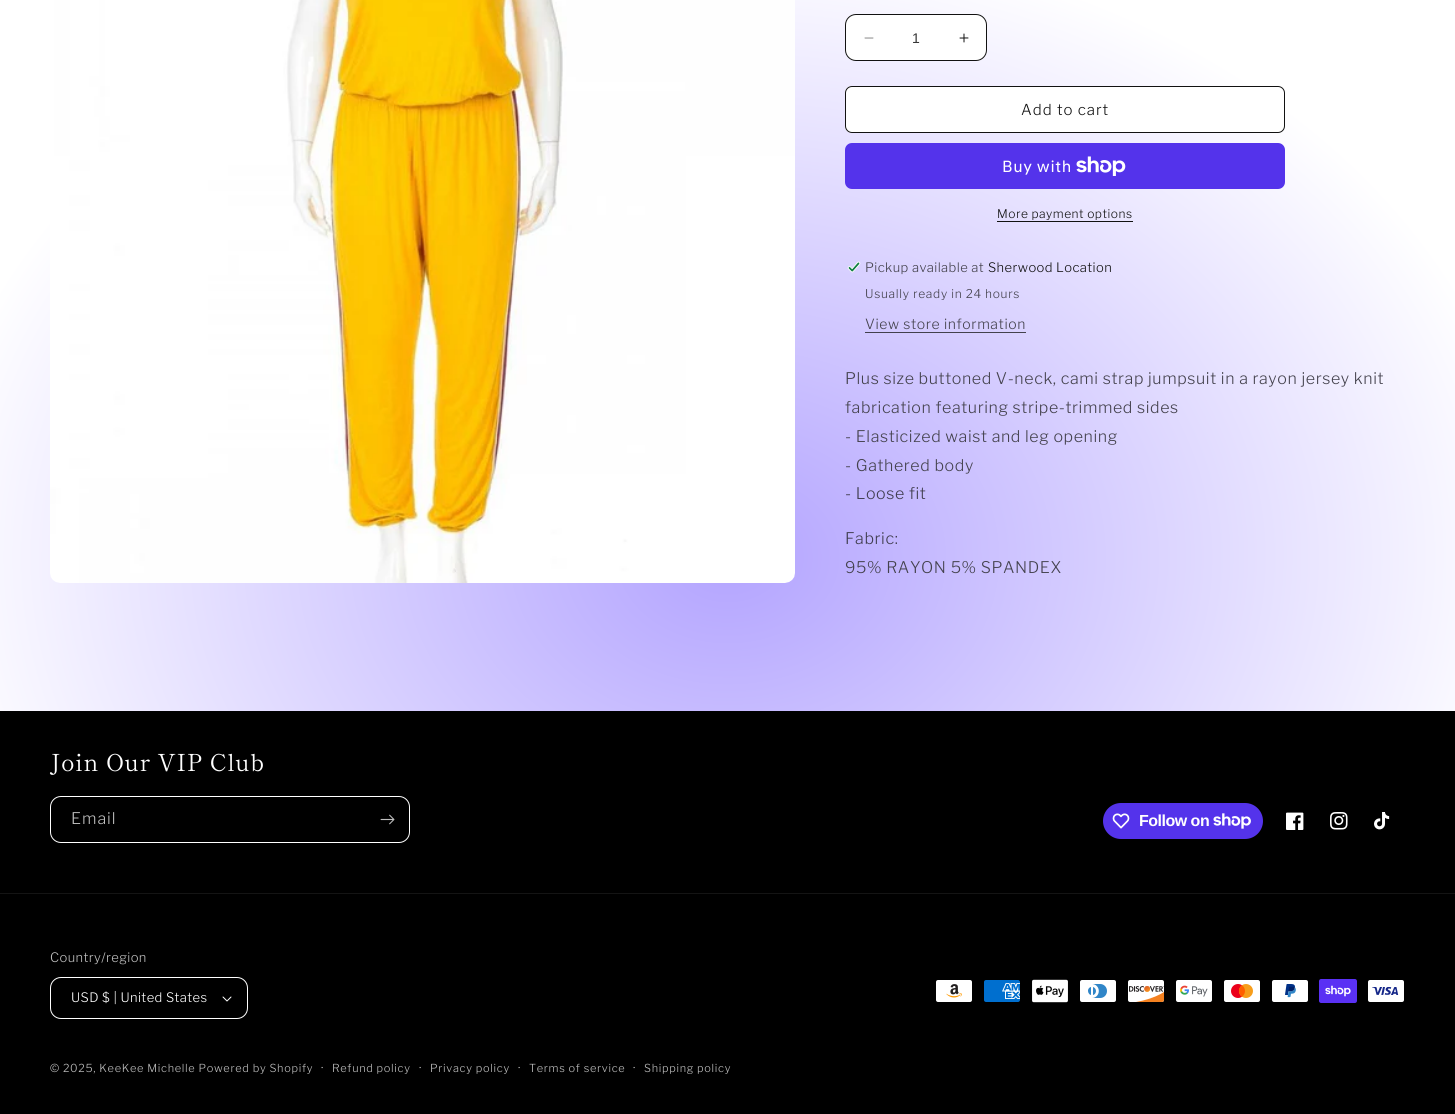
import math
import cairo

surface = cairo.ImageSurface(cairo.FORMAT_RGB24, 1455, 1114)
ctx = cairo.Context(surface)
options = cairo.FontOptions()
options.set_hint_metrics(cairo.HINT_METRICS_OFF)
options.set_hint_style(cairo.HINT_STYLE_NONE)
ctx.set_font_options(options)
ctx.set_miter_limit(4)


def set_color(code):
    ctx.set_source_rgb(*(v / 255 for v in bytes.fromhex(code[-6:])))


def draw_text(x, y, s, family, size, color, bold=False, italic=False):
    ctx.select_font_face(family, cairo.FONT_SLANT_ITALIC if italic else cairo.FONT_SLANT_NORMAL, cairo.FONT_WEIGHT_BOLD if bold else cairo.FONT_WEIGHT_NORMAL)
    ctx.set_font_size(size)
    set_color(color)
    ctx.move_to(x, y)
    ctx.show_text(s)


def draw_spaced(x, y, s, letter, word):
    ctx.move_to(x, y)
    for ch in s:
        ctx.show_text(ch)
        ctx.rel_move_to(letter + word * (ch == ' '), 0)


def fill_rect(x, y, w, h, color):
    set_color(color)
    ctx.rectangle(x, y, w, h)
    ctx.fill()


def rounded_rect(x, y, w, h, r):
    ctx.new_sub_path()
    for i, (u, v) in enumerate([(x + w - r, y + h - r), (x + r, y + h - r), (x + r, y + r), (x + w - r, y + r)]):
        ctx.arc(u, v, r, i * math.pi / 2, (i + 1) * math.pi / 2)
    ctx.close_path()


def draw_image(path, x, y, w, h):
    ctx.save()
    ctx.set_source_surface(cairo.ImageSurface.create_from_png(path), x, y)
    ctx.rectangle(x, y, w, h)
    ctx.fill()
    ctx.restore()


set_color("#ffffff")
ctx.paint()
gradient = cairo.RadialGradient(0, 0, 0, 0, 0, 1)
gradient.set_matrix(cairo.Matrix(1 / 1029, 0, 0, 1 / 788, -1 * 728 / 1029, -1 * 557 / 788))
gradient.add_color_stop_rgba(0, 0.702, 0.643, 1, 1)
gradient.add_color_stop_rgba(0.79, 1, 1, 1, 1)
gradient.add_color_stop_rgba(0.97, 1, 1, 1, 1)
ctx.set_source(gradient)
ctx.rectangle(0, 0, 1455, 711)
ctx.fill()
gradient = cairo.RadialGradient(0, 0, 0, 0, 0, 1)
gradient.set_matrix(cairo.Matrix(1 / 1029, 0, 0, 1 / 788, -1 * 728 / 1029, -1 * 557 / 788))
gradient.add_color_stop_rgba(0, 0.227, 0.216, 0.302, 1)
gradient.add_color_stop_rgba(0.79, 0.302, 0.302, 0.302, 1)
gradient.add_color_stop_rgba(0.97, 0.302, 0.302, 0.302, 1)
ctx.set_source(gradient)
ctx.rectangle(865, 332, 161, 1)
ctx.fill()
draw_image("assets/img1.png", 50, 0, 745, 583)
set_color("#ffffff")
rounded_rect(845, 14, 142, 47, 11)
ctx.fill()
draw_image("assets/img2.png", 864, 37, 10, 2)
draw_image("assets/img3.png", 959, 33, 10, 10)
rounded_rect(845.5, 14.5, 141, 46, 10.5)
set_color("#121212")
ctx.set_line_width(1)
ctx.stroke()
draw_text(912, 43, "1", "Liberation Sans", 14, "#363636")
set_color("#ffffff")
rounded_rect(845, 86, 440, 47, 7)
ctx.fill()
rounded_rect(845.5, 86.5, 439, 46, 6.5)
ctx.stroke()
rounded_rect(845.5, 86.5, 439, 46, 6.5)
set_color("#121212")
ctx.stroke()
ctx.select_font_face("Libre Franklin Light")
ctx.set_font_size(15)
draw_spaced(1021, 115, "Add to cart", 1, 0)
set_color("#5433eb")
rounded_rect(845, 143, 440, 46, 7)
ctx.fill()
ctx.select_font_face("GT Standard")
ctx.set_font_size(16)
set_color("#ffffff")
draw_spaced(1002, 172, "Buy with", 0.6, 0)
draw_image("assets/img4.png", 1076, 156, 50, 20)
ctx.select_font_face("Libre Franklin Light")
ctx.set_font_size(12)
set_color("#121212")
draw_spaced(997, 218, "More payment options", 0.5, 0)
fill_rect(997, 221, 136, 1, "#121212")
draw_image("assets/img5.png", 847, 261, 14, 12)
ctx.set_font_size(13)
set_color("#44424d")
draw_spaced(865, 272, "Pickup available at", 0.4, 0)
set_color("#121212")
draw_spaced(988, 272, "Sherwood Location", 0.4, 0)
ctx.set_font_size(12)
set_color("#44424d")
draw_spaced(865, 298, "Usually ready in 24 hours", 0.7, 0)
ctx.set_font_size(14)
draw_spaced(865, 329, "View store information", 0.6, 0)
ctx.set_font_size(16)
draw_spaced(845, 384, "Plus size buttoned V-neck, cami strap jumpsuit in a rayon jersey knit", 0.6, 0)
draw_spaced(845, 413, "fabrication featuring stripe-trimmed sides", 0.6, 0)
draw_spaced(845, 442, "- Elasticized waist and leg opening", 0.6, 0)
draw_spaced(845, 471, "- Gathered body", 0.6, 0)
set_color("#3f3c4d")
draw_spaced(845, 499, "- Loose fit", 0.6, 0)
draw_spaced(845, 544, "Fabric:", 0.6, 0)
set_color("#44424d")
draw_spaced(845, 573, "95% RAYON 5% SPANDEX", 0.6, 0)
fill_rect(0, 711, 1455, 403, "#000000")
ctx.select_font_face("Shippori Mincho")
ctx.set_font_size(23.5)
set_color("#ffffff")
draw_spaced(50, 771, "Join Our VIP Club", 0.75, 0)
rounded_rect(50.5, 796.5, 359, 46, 10.5)
ctx.stroke()
ctx.select_font_face("Libre Franklin Light")
ctx.set_font_size(16)
set_color("#bfbfbf")
draw_spaced(71, 824, "Email", 1, 0)
draw_image("assets/img6.png", 380, 814, 15, 11)
set_color("#5433eb")
rounded_rect(1103, 803, 160, 36, 18)
ctx.fill()
draw_image("assets/img7.png", 1112, 813, 18, 16)
ctx.select_font_face("Liberation Sans", cairo.FONT_SLANT_NORMAL, cairo.FONT_WEIGHT_BOLD)
set_color("#ffffff")
draw_spaced(1139, 826, "Follow on", -0.5, 0)
draw_image("assets/img8.png", 1213, 813, 38, 16)
draw_image("assets/img9.png", 1286, 812, 18, 18)
draw_image("assets/img10.png", 1330, 812, 18, 18)
draw_image("assets/img11.png", 1374, 812, 16, 18)
fill_rect(0, 893, 1455, 1, "#141414")
ctx.select_font_face("Libre Franklin Light")
ctx.set_font_size(13)
set_color("#bfbfbf")
draw_spaced(50, 962, "Country/region", 0.4, 0)
draw_image("assets/img12.png", 222, 996, 10, 6)
rounded_rect(50.5, 977.5, 197, 41, 10.5)
set_color("#ffffff")
ctx.stroke()
draw_spaced(71, 1002, "USD $ | United States", 0.4, 0)
draw_image("assets/img13.png", 936, 980, 36, 22)
draw_image("assets/img14.png", 984, 980, 36, 22)
draw_image("assets/img15.png", 1032, 979, 36, 24)
draw_image("assets/img16.png", 1080, 980, 36, 22)
draw_image("assets/img17.png", 1128, 980, 37, 22)
draw_image("assets/img18.png", 1176, 980, 36, 22)
draw_image("assets/img19.png", 1224, 980, 36, 22)
draw_image("assets/img20.png", 1272, 980, 36, 22)
draw_image("assets/img21.png", 1319, 979, 38, 24)
draw_image("assets/img22.png", 1368, 980, 36, 22)
ctx.set_font_size(11)
set_color("#bfbfbf")
draw_spaced(50, 1072, "© 2025, KeeKee Michelle Powered by Shopify", 0.7, 0)
ctx.set_font_size(12)
draw_spaced(321, 1072, "·", 0.7, 0)
ctx.set_font_size(11)
draw_spaced(332, 1072, "Refund policy", 0.7, 0)
ctx.set_font_size(12)
draw_spaced(419, 1072, "·", 0.7, 0)
ctx.set_font_size(11)
draw_spaced(430, 1072, "Privacy policy", 0.7, 0)
ctx.set_font_size(12)
draw_spaced(518, 1072, "·", 0.7, 0)
ctx.set_font_size(11)
draw_spaced(529, 1072, "Terms of service", 0.7, 0)
ctx.set_font_size(12)
draw_spaced(633, 1072, "·", 0.7, 0)
ctx.set_font_size(11)
draw_spaced(644, 1072, "Shipping policy", 0.7, 0)
surface.write_to_png("output.png")
